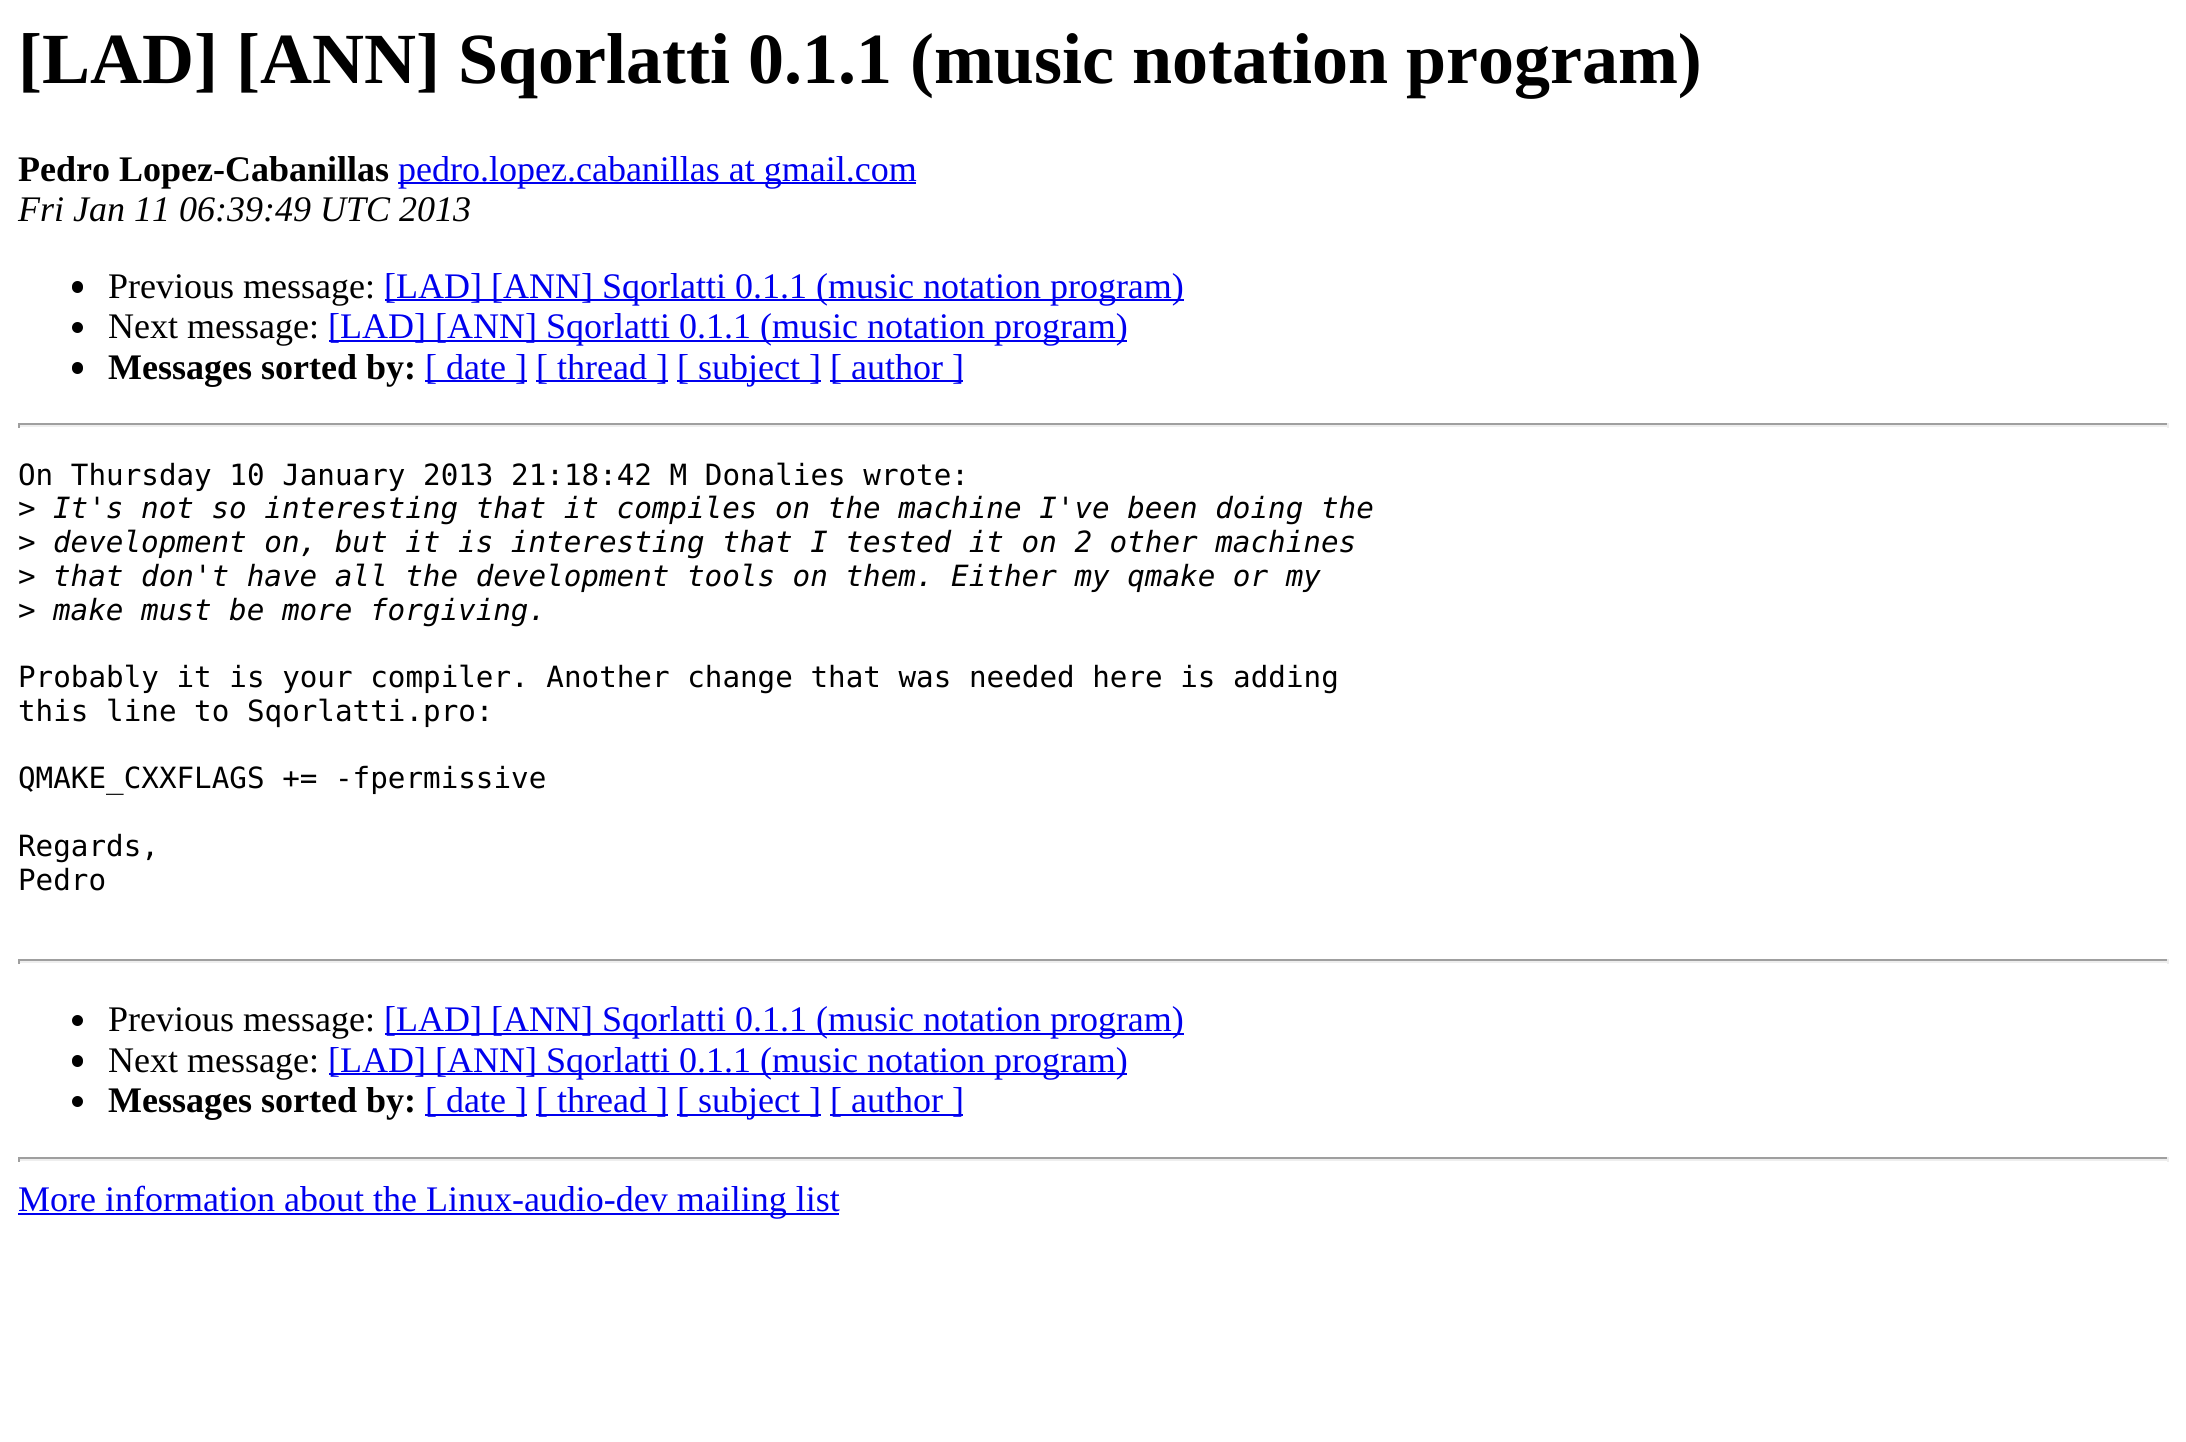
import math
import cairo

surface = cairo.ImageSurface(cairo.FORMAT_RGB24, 2186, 1442)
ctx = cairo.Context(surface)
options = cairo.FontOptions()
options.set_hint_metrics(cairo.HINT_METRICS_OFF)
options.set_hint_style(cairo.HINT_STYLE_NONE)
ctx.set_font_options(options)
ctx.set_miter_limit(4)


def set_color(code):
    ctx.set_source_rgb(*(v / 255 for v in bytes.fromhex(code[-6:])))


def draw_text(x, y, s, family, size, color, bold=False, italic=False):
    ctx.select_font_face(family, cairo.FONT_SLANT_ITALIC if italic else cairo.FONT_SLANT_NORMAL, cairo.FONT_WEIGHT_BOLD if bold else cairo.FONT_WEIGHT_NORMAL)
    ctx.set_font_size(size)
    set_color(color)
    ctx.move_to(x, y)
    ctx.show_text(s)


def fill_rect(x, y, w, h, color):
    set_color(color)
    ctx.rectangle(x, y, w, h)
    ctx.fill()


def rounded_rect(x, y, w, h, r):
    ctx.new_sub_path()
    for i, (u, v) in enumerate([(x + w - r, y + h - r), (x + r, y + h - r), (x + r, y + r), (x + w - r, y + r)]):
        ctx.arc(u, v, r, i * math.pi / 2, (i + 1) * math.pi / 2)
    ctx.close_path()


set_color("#ffffff")
ctx.paint()
draw_text(18, 83, "[LAD] [ANN] Sqorlatti 0.1.1 (music notation program)", "Liberation Serif", 72, "#000000", bold=True)
draw_text(18, 181, "Pedro Lopez-Cabanillas", "Liberation Serif", 36, "#000000", bold=True)
fill_rect(398, 182, 518, 2, "#0000ee")
draw_text(398, 181, "pedro.lopez.cabanillas at gmail.com", "Liberation Serif", 36, "#0000ee")
draw_text(18, 221, "Fri Jan 11 06:39:49 UTC 2013", "Liberation Serif", 36, "#000000", italic=True)
rounded_rect(72, 281, 11, 12, 5.5)
ctx.fill()
draw_text(108, 298, "Previous message:", "Liberation Serif", 36, "#000000")
fill_rect(385, 299, 799, 2, "#0000ee")
draw_text(384, 298, "[LAD] [ANN] Sqorlatti 0.1.1 (music notation program)", "Liberation Serif", 36, "#0000ee")
set_color("#000000")
ctx.new_path()
ctx.arc(77.5, 327.5, 5.5, 0, 2 * math.pi)
ctx.fill()
draw_text(108, 338, "Next message:", "Liberation Serif", 36, "#000000")
fill_rect(329, 340, 798, 2, "#0000ee")
draw_text(328, 338, "[LAD] [ANN] Sqorlatti 0.1.1 (music notation program)", "Liberation Serif", 36, "#0000ee")
set_color("#000000")
rounded_rect(72, 362, 11, 12, 5.5)
ctx.fill()
draw_text(108, 379, "Messages sorted by:", "Liberation Serif", 36, "#000000", bold=True)
fill_rect(425, 380, 102, 2, "#0000ee")
draw_text(425, 379, "[ date ]", "Liberation Serif", 36, "#0000ee")
fill_rect(536, 380, 132, 2, "#0000ee")
draw_text(536, 379, "[ thread ]", "Liberation Serif", 36, "#0000ee")
fill_rect(677, 380, 144, 2, "#0000ee")
draw_text(677, 379, "[ subject ]", "Liberation Serif", 36, "#0000ee")
fill_rect(830, 380, 133, 2, "#0000ee")
draw_text(830, 379, "[ author ]", "Liberation Serif", 36, "#0000ee")
fill_rect(18, 423, 2151, 2, "#9f9f9f")
fill_rect(2167, 423, 2, 5, "#eeeeee")
fill_rect(18, 425, 2151, 2, "#eeeeee")
fill_rect(18, 423, 2, 5, "#9f9f9f")
draw_text(18, 485, "On Thursday 10 January 2013 21:18:42 M Donalies wrote:", "DejaVu Sans Mono", 29.25, "#000000")
draw_text(18, 518, ">", "DejaVu Sans Mono", 29.25, "#000000")
draw_text(53, 518, "It's not so interesting that it compiles on the machine I've been doing the", "DejaVu Sans Mono", 29.25, "#000000", italic=True)
draw_text(18, 552, ">", "DejaVu Sans Mono", 29.25, "#000000")
draw_text(53, 552, "development on, but it is interesting that I tested it on 2 other machines", "DejaVu Sans Mono", 29.25, "#000000", italic=True)
draw_text(18, 586, ">", "DejaVu Sans Mono", 29.25, "#000000")
draw_text(53, 586, "that don't have all the development tools on them. Either my qmake or my", "DejaVu Sans Mono", 29.25, "#000000", italic=True)
draw_text(18, 620, ">", "DejaVu Sans Mono", 29.25, "#000000")
draw_text(53, 620, "make must be more forgiving.", "DejaVu Sans Mono", 29.25, "#000000", italic=True)
draw_text(18, 687, "Probably it is your compiler. Another change that was needed here is adding", "DejaVu Sans Mono", 29.25, "#000000")
draw_text(18, 721, "this line to Sqorlatti.pro:", "DejaVu Sans Mono", 29.25, "#000000")
draw_text(18, 788, "QMAKE_CXXFLAGS += -fpermissive", "DejaVu Sans Mono", 29.25, "#000000")
draw_text(18, 856, "Regards,", "DejaVu Sans Mono", 29.25, "#000000")
draw_text(18, 890, "Pedro", "DejaVu Sans Mono", 29.25, "#000000")
fill_rect(18, 959, 2151, 2, "#9f9f9f")
fill_rect(2167, 959, 2, 5, "#eeeeee")
fill_rect(18, 961, 2151, 2, "#eeeeee")
fill_rect(18, 959, 2, 5, "#9f9f9f")
set_color("#000000")
ctx.new_path()
ctx.arc(77.5, 1020.5, 5.5, 0, 2 * math.pi)
ctx.fill()
draw_text(108, 1031, "Previous message:", "Liberation Serif", 36, "#000000")
fill_rect(385, 1033, 799, 2, "#0000ee")
draw_text(384, 1031, "[LAD] [ANN] Sqorlatti 0.1.1 (music notation program)", "Liberation Serif", 36, "#0000ee")
set_color("#000000")
rounded_rect(72, 1055, 11, 12, 5.5)
ctx.fill()
draw_text(108, 1072, "Next message:", "Liberation Serif", 36, "#000000")
fill_rect(329, 1073, 798, 2, "#0000ee")
draw_text(328, 1072, "[LAD] [ANN] Sqorlatti 0.1.1 (music notation program)", "Liberation Serif", 36, "#0000ee")
set_color("#000000")
ctx.new_path()
ctx.arc(77.5, 1101.5, 5.5, 0, 2 * math.pi)
ctx.fill()
draw_text(108, 1112, "Messages sorted by:", "Liberation Serif", 36, "#000000", bold=True)
fill_rect(425, 1114, 102, 2, "#0000ee")
draw_text(425, 1112, "[ date ]", "Liberation Serif", 36, "#0000ee")
fill_rect(536, 1114, 132, 2, "#0000ee")
draw_text(536, 1112, "[ thread ]", "Liberation Serif", 36, "#0000ee")
fill_rect(677, 1114, 144, 2, "#0000ee")
draw_text(677, 1112, "[ subject ]", "Liberation Serif", 36, "#0000ee")
fill_rect(830, 1114, 133, 2, "#0000ee")
draw_text(830, 1112, "[ author ]", "Liberation Serif", 36, "#0000ee")
fill_rect(18, 1157, 2151, 2, "#9f9f9f")
fill_rect(2167, 1157, 2, 5, "#eeeeee")
fill_rect(18, 1159, 2151, 2, "#eeeeee")
fill_rect(18, 1157, 2, 5, "#9f9f9f")
fill_rect(18, 1213, 821, 2, "#0000ee")
draw_text(18, 1211, "More information about the Linux-audio-dev mailing list", "Liberation Serif", 36, "#0000ee")
surface.write_to_png("output.png")
